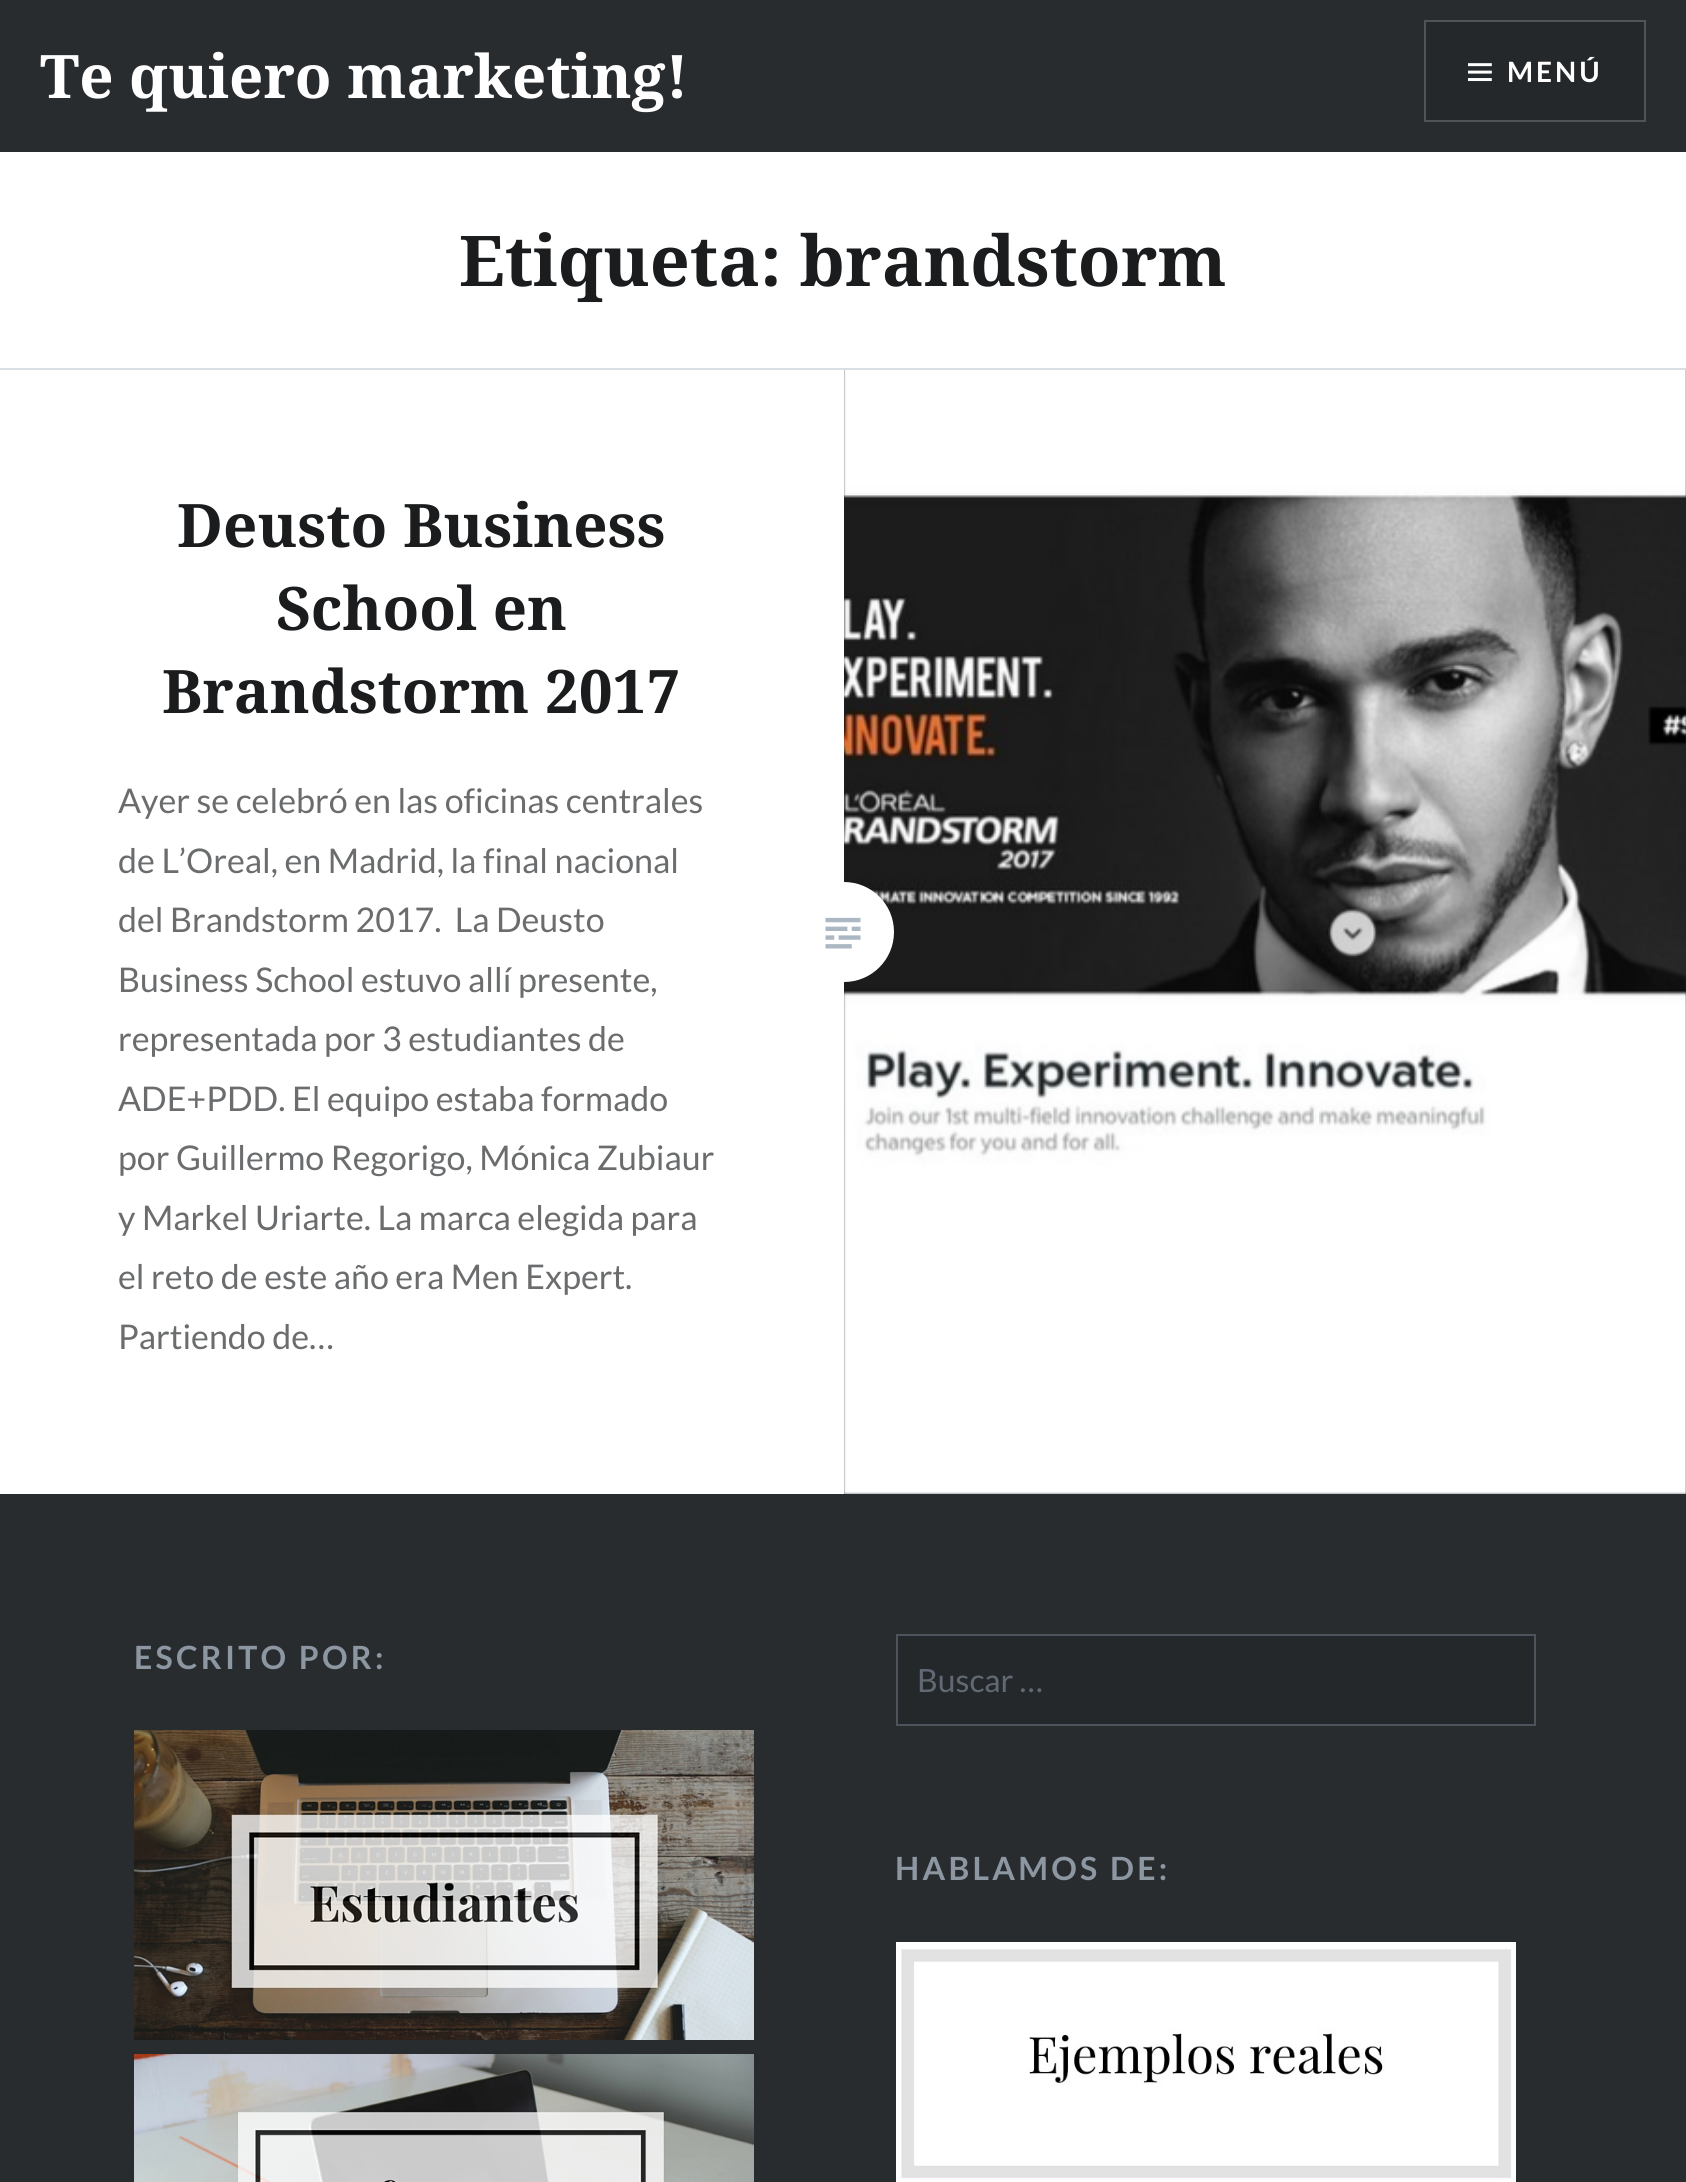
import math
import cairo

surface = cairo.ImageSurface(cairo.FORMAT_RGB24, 1686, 2182)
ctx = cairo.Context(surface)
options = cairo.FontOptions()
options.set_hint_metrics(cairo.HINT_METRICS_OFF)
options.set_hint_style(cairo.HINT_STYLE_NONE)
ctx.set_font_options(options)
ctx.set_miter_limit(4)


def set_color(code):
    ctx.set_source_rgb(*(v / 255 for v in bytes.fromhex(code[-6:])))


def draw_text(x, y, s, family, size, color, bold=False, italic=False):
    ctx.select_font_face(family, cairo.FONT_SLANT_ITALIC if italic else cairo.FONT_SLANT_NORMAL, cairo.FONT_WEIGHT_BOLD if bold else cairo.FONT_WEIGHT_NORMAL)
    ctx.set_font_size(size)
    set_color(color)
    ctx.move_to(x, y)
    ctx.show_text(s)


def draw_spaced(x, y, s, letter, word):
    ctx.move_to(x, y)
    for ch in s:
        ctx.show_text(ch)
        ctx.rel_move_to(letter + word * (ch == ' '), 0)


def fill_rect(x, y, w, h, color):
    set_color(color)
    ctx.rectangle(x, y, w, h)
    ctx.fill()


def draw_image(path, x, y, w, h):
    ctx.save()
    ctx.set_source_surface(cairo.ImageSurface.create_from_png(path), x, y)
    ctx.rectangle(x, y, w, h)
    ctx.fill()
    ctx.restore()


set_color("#ffffff")
ctx.paint()
fill_rect(0, 0, 1686, 152, "#292c2f")
draw_text(40, 98, "Te quiero marketing!", "Noto Serif", 60, "#ffffff", bold=True)
set_color("#25282a")
ctx.rectangle(1425, 21, 220, 100)
ctx.fill_preserve()
set_color("#515355")
ctx.stroke()
draw_image("assets/img1.png", 1468, 63, 24, 19)
ctx.select_font_face("Lato", cairo.FONT_SLANT_NORMAL, cairo.FONT_WEIGHT_BOLD)
ctx.set_font_size(28)
set_color("#ffffff")
draw_spaced(1507, 82, "MENÚ", 3, 0)
fill_rect(0, 368, 1686, 2, "#d9dfe5")
draw_text(459, 286, "Etiqueta: brandstorm", "Noto Serif", 70, "#1a1c1e", bold=True)
draw_text(177, 547, "Deusto Business", "Noto Serif", 60, "#1a1c1e", bold=True)
draw_text(276, 630, "School en", "Noto Serif", 60, "#1a1c1e", bold=True)
draw_text(162, 713, "Brandstorm 2017", "Noto Serif", 60, "#1a1c1e", bold=True)
draw_text(118, 813, "Ayer se celebró en las oficinas centrales", "Lato", 34, "#6a6c6e")
draw_text(118, 873, "de L’Oreal, en Madrid, la final nacional", "Lato", 34, "#6a6c6e")
draw_text(118, 932, "del Brandstorm 2017.  La Deusto", "Lato", 34, "#6a6c6e")
draw_text(118, 992, "Business School estuvo allí presente,", "Lato", 34, "#6a6c6e")
draw_text(118, 1051, "representada por 3 estudiantes de", "Lato", 34, "#6a6c6e")
draw_text(118, 1111, "ADE+PDD. El equipo estaba formado", "Lato", 34, "#6a6c6e")
draw_text(118, 1170, "por Guillermo Regorigo, Mónica Zubiaur", "Lato", 34, "#6a6c6e")
draw_text(118, 1230, "y Markel Uriarte. La marca elegida para", "Lato", 34, "#6a6c6e")
draw_text(118, 1289, "el reto de este año era Men Expert.", "Lato", 34, "#6a6c6e")
draw_text(118, 1349, "Partiendo de…", "Lato", 34, "#6a6c6e")
fill_rect(844, 370, 842, 1124, "#242629")
draw_image("assets/img3.png", 844, 370, 842, 1124)
set_color("#ffffff")
ctx.arc(844, 932, 50, 0, 2 * math.pi)
ctx.fill()
draw_image("assets/img2.png", 825, 917, 36, 32)
fill_rect(0, 1494, 1686, 688, "#292c2f")
ctx.select_font_face("Lato", cairo.FONT_SLANT_NORMAL, cairo.FONT_WEIGHT_BOLD)
ctx.set_font_size(32)
set_color("#8c97a2")
draw_spaced(134, 1669, "ESCRITO POR:", 3.25, 0)
draw_image("assets/img4.png", 134, 1730, 620, 310)
draw_image("assets/img5.png", 134, 2054, 620, 128)
set_color("#25282a")
ctx.rectangle(897, 1635, 638, 90)
ctx.fill_preserve()
set_color("#4d545b")
ctx.stroke()
draw_text(917, 1692, "Buscar …", "Lato", 32, "#616a74")
ctx.select_font_face("Lato", cairo.FONT_SLANT_NORMAL, cairo.FONT_WEIGHT_BOLD)
set_color("#8c97a2")
draw_spaced(895, 1880, "HABLAMOS DE:", 3.25, 0)
draw_image("assets/img6.png", 896, 1942, 620, 240)
surface.write_to_png("output.png")
